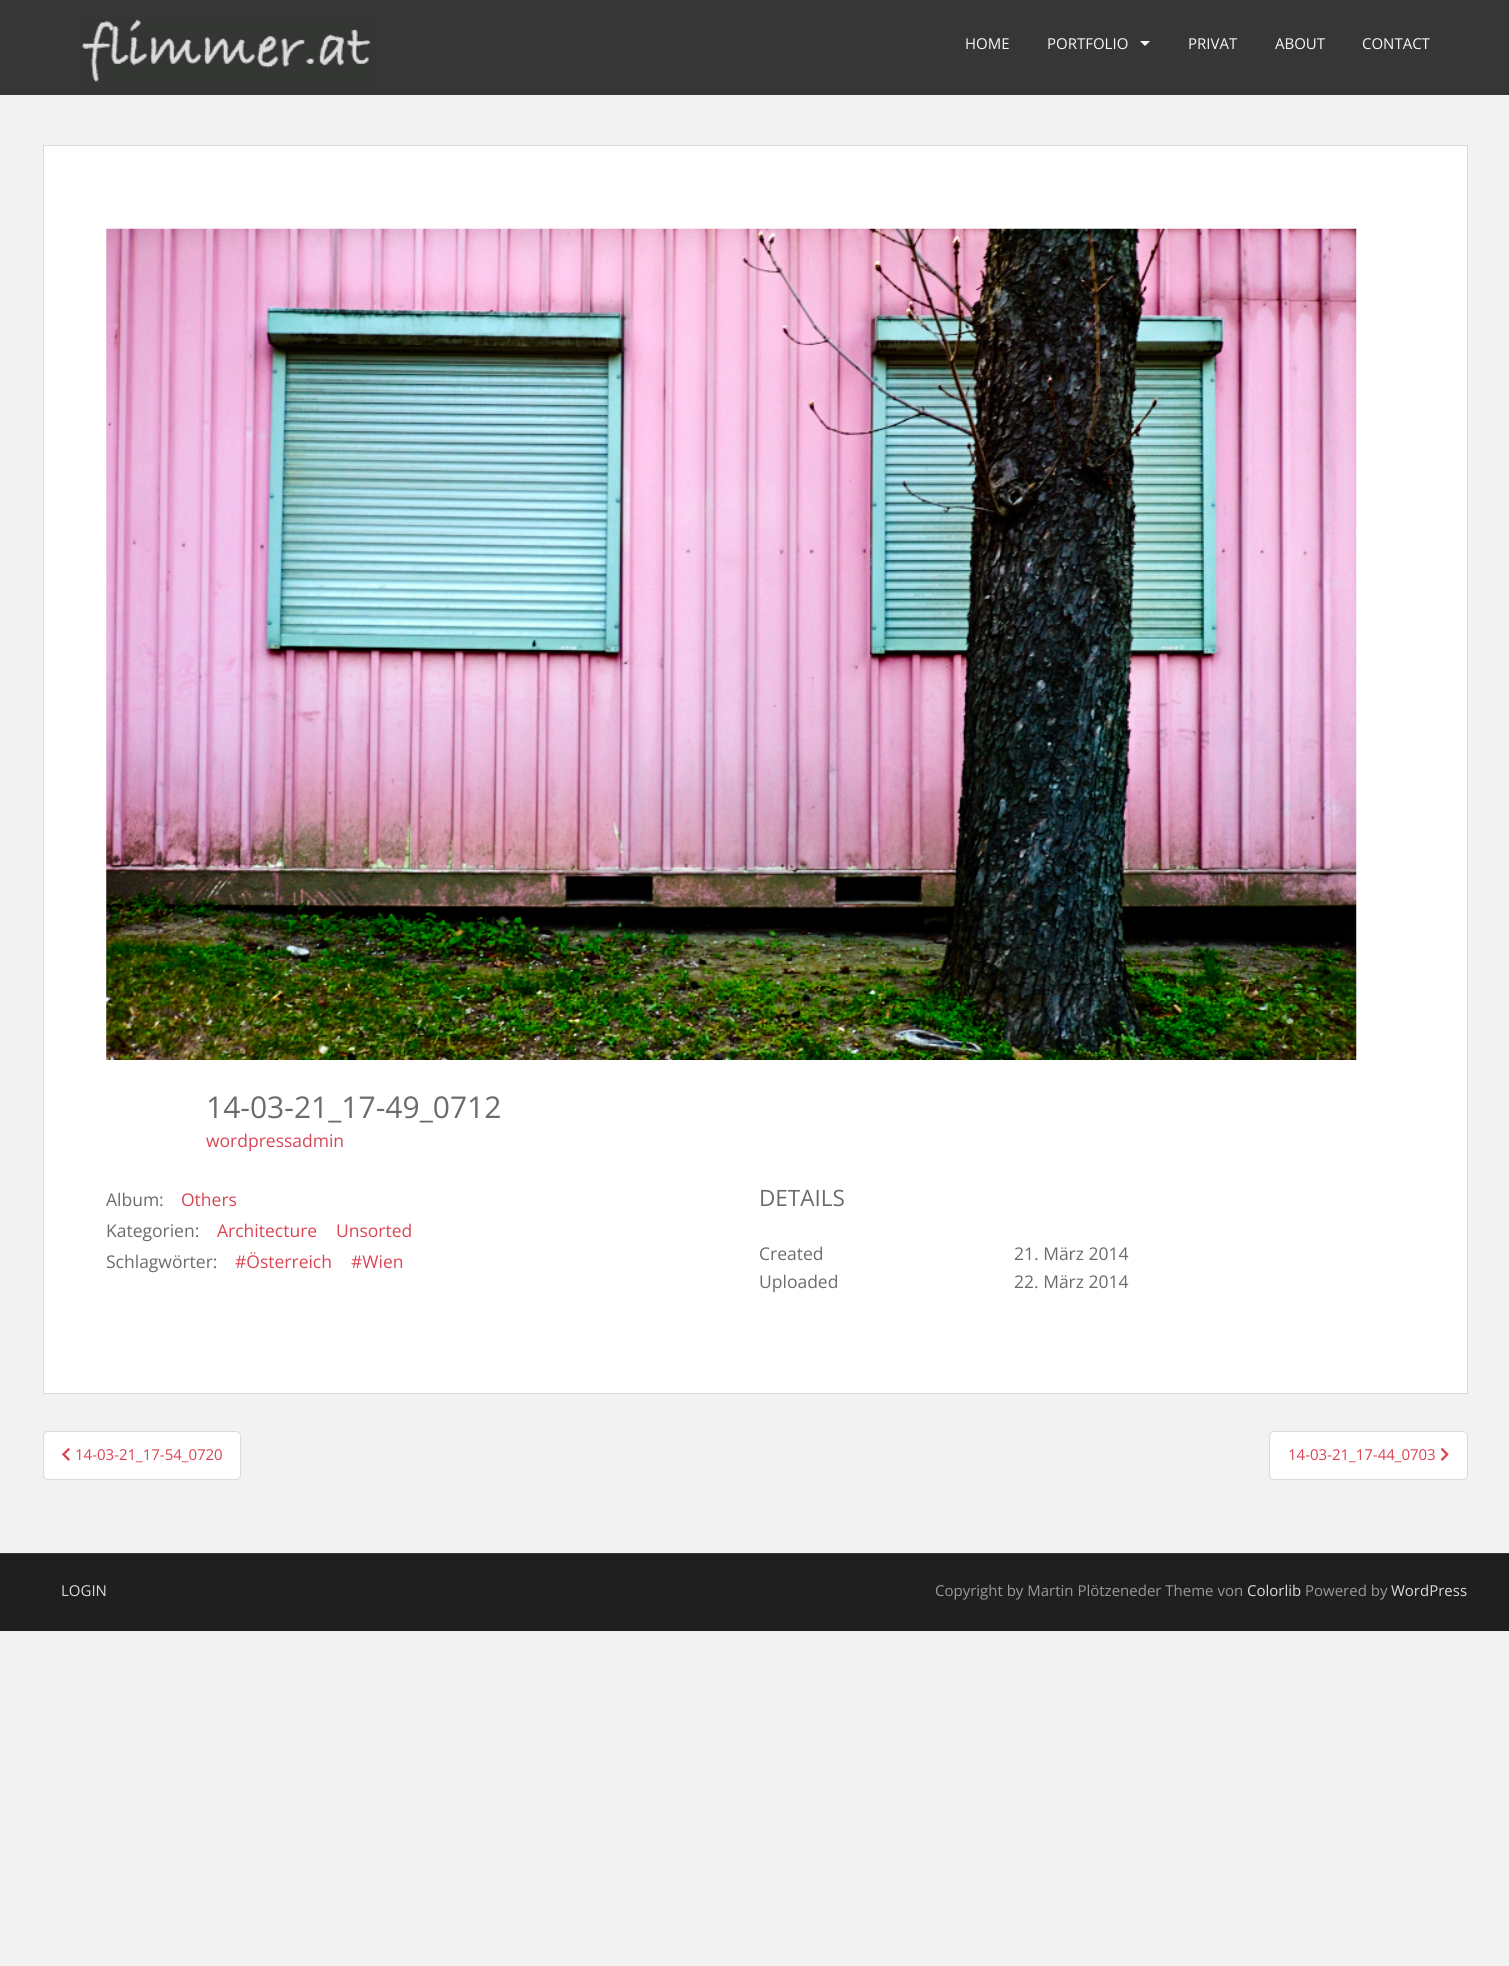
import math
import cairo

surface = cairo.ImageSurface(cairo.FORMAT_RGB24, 1509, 1966)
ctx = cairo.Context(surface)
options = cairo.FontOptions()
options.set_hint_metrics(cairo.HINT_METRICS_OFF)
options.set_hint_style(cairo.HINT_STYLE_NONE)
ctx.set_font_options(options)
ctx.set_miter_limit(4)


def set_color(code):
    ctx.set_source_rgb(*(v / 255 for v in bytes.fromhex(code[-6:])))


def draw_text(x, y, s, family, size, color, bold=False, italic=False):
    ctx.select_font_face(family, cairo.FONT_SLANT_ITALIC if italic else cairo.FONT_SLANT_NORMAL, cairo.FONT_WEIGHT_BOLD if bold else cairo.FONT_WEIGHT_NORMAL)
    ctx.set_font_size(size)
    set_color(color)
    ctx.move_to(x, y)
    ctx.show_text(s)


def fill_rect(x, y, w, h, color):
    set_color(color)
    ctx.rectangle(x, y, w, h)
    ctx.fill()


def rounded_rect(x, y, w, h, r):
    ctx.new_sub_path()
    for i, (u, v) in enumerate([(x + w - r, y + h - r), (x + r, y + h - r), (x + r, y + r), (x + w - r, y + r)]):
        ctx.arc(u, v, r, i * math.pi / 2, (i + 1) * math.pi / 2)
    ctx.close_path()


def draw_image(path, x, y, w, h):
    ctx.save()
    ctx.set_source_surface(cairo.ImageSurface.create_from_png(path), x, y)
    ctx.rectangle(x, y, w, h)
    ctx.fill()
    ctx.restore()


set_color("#f2f2f2")
ctx.paint()
fill_rect(0, 0, 1509, 95, "#363636")
draw_image("assets/img1.png", 82, 19, 289, 63)
draw_text(965, 49, "HOME", "Open Sans", 15, "#f5f7fa")
draw_text(1047, 49, "PORTFOLIO", "Open Sans", 15, "#f5f7fa")
ctx.new_path()
ctx.move_to(1140, 41)
ctx.line_to(1150, 41)
ctx.line_to(1145, 46)
ctx.close_path()
ctx.fill()
draw_text(1188, 49, "PRIVAT", "Open Sans", 15, "#f5f7fa")
draw_text(1275, 49, "ABOUT", "Open Sans", 15, "#f5f7fa")
draw_text(1362, 49, "CONTACT", "Open Sans", 15, "#f5f7fa")
set_color("#ffffff")
ctx.rectangle(43.5, 145.5, 1424, 1248)
ctx.fill_preserve()
set_color("#dadada")
ctx.set_line_width(1)
ctx.stroke()
draw_image("assets/img2.png", 106, 228, 1251, 832)
draw_text(206, 1118, "14-03-21_17-49_0712", "Open Sans", 30, "#6b6b6b")
draw_text(206, 1147, "wordpressadmin", "Open Sans", 17.5, "#da4453")
draw_text(106, 1206, "Album:", "Open Sans", 17.5, "#6b6b6b")
draw_text(181, 1206, "Others", "Open Sans", 17.5, "#da4453")
draw_text(106, 1237, "Kategorien:", "Open Sans", 17.5, "#6b6b6b")
draw_text(217, 1237, "Architecture", "Open Sans", 17.5, "#da4453")
draw_text(336, 1237, "Unsorted", "Open Sans", 17.5, "#da4453")
draw_text(106, 1268, "Schlagwörter:", "Open Sans", 17.5, "#6b6b6b")
draw_text(235, 1268, "#Österreich", "Open Sans", 17.5, "#da4453")
draw_text(351, 1268, "#Wien", "Open Sans", 17.5, "#da4453")
draw_text(759, 1206, "DETAILS", "Open Sans", 22.5, "#6b6b6b")
draw_text(759, 1260, "Created", "Open Sans", 17.5, "#6b6b6b")
draw_text(1014, 1260, "21. März 2014", "Open Sans", 17.5, "#6b6b6b")
draw_text(759, 1288, "Uploaded", "Open Sans", 17.5, "#6b6b6b")
draw_text(1014, 1288, "22. März 2014", "Open Sans", 17.5, "#6b6b6b")
set_color("#ffffff")
rounded_rect(43.5, 1431.5, 197, 48, 4.5)
ctx.fill_preserve()
set_color("#dadada")
ctx.stroke()
draw_image("assets/img3.png", 62, 1448, 8, 13)
draw_text(75, 1460, "14-03-21_17-54_0720", "Open Sans", 15, "#da4453")
set_color("#ffffff")
rounded_rect(1269.5, 1431.5, 198, 48, 4.5)
ctx.fill_preserve()
set_color("#dadada")
ctx.stroke()
draw_text(1288, 1460, "14-03-21_17-44_0703", "Open Sans", 15, "#da4453")
draw_image("assets/img4.png", 1440, 1448, 9, 13)
fill_rect(0, 1554, 1509, 77, "#1f1f1f")
fill_rect(0, 1553, 1509, 1, "#3a3a3a")
draw_text(61, 1596, "LOGIN", "Open Sans", 15, "#dadada")
draw_text(935, 1596, "Copyright by Martin Plötzeneder Theme von", "Open Sans", 15, "#999999")
draw_text(1247, 1596, "Colorlib", "Open Sans", 15, "#dadada")
draw_text(1305, 1596, "Powered by", "Open Sans", 15, "#999999")
draw_text(1391, 1596, "WordPress", "Open Sans", 15, "#dadada")
surface.write_to_png("output.png")
